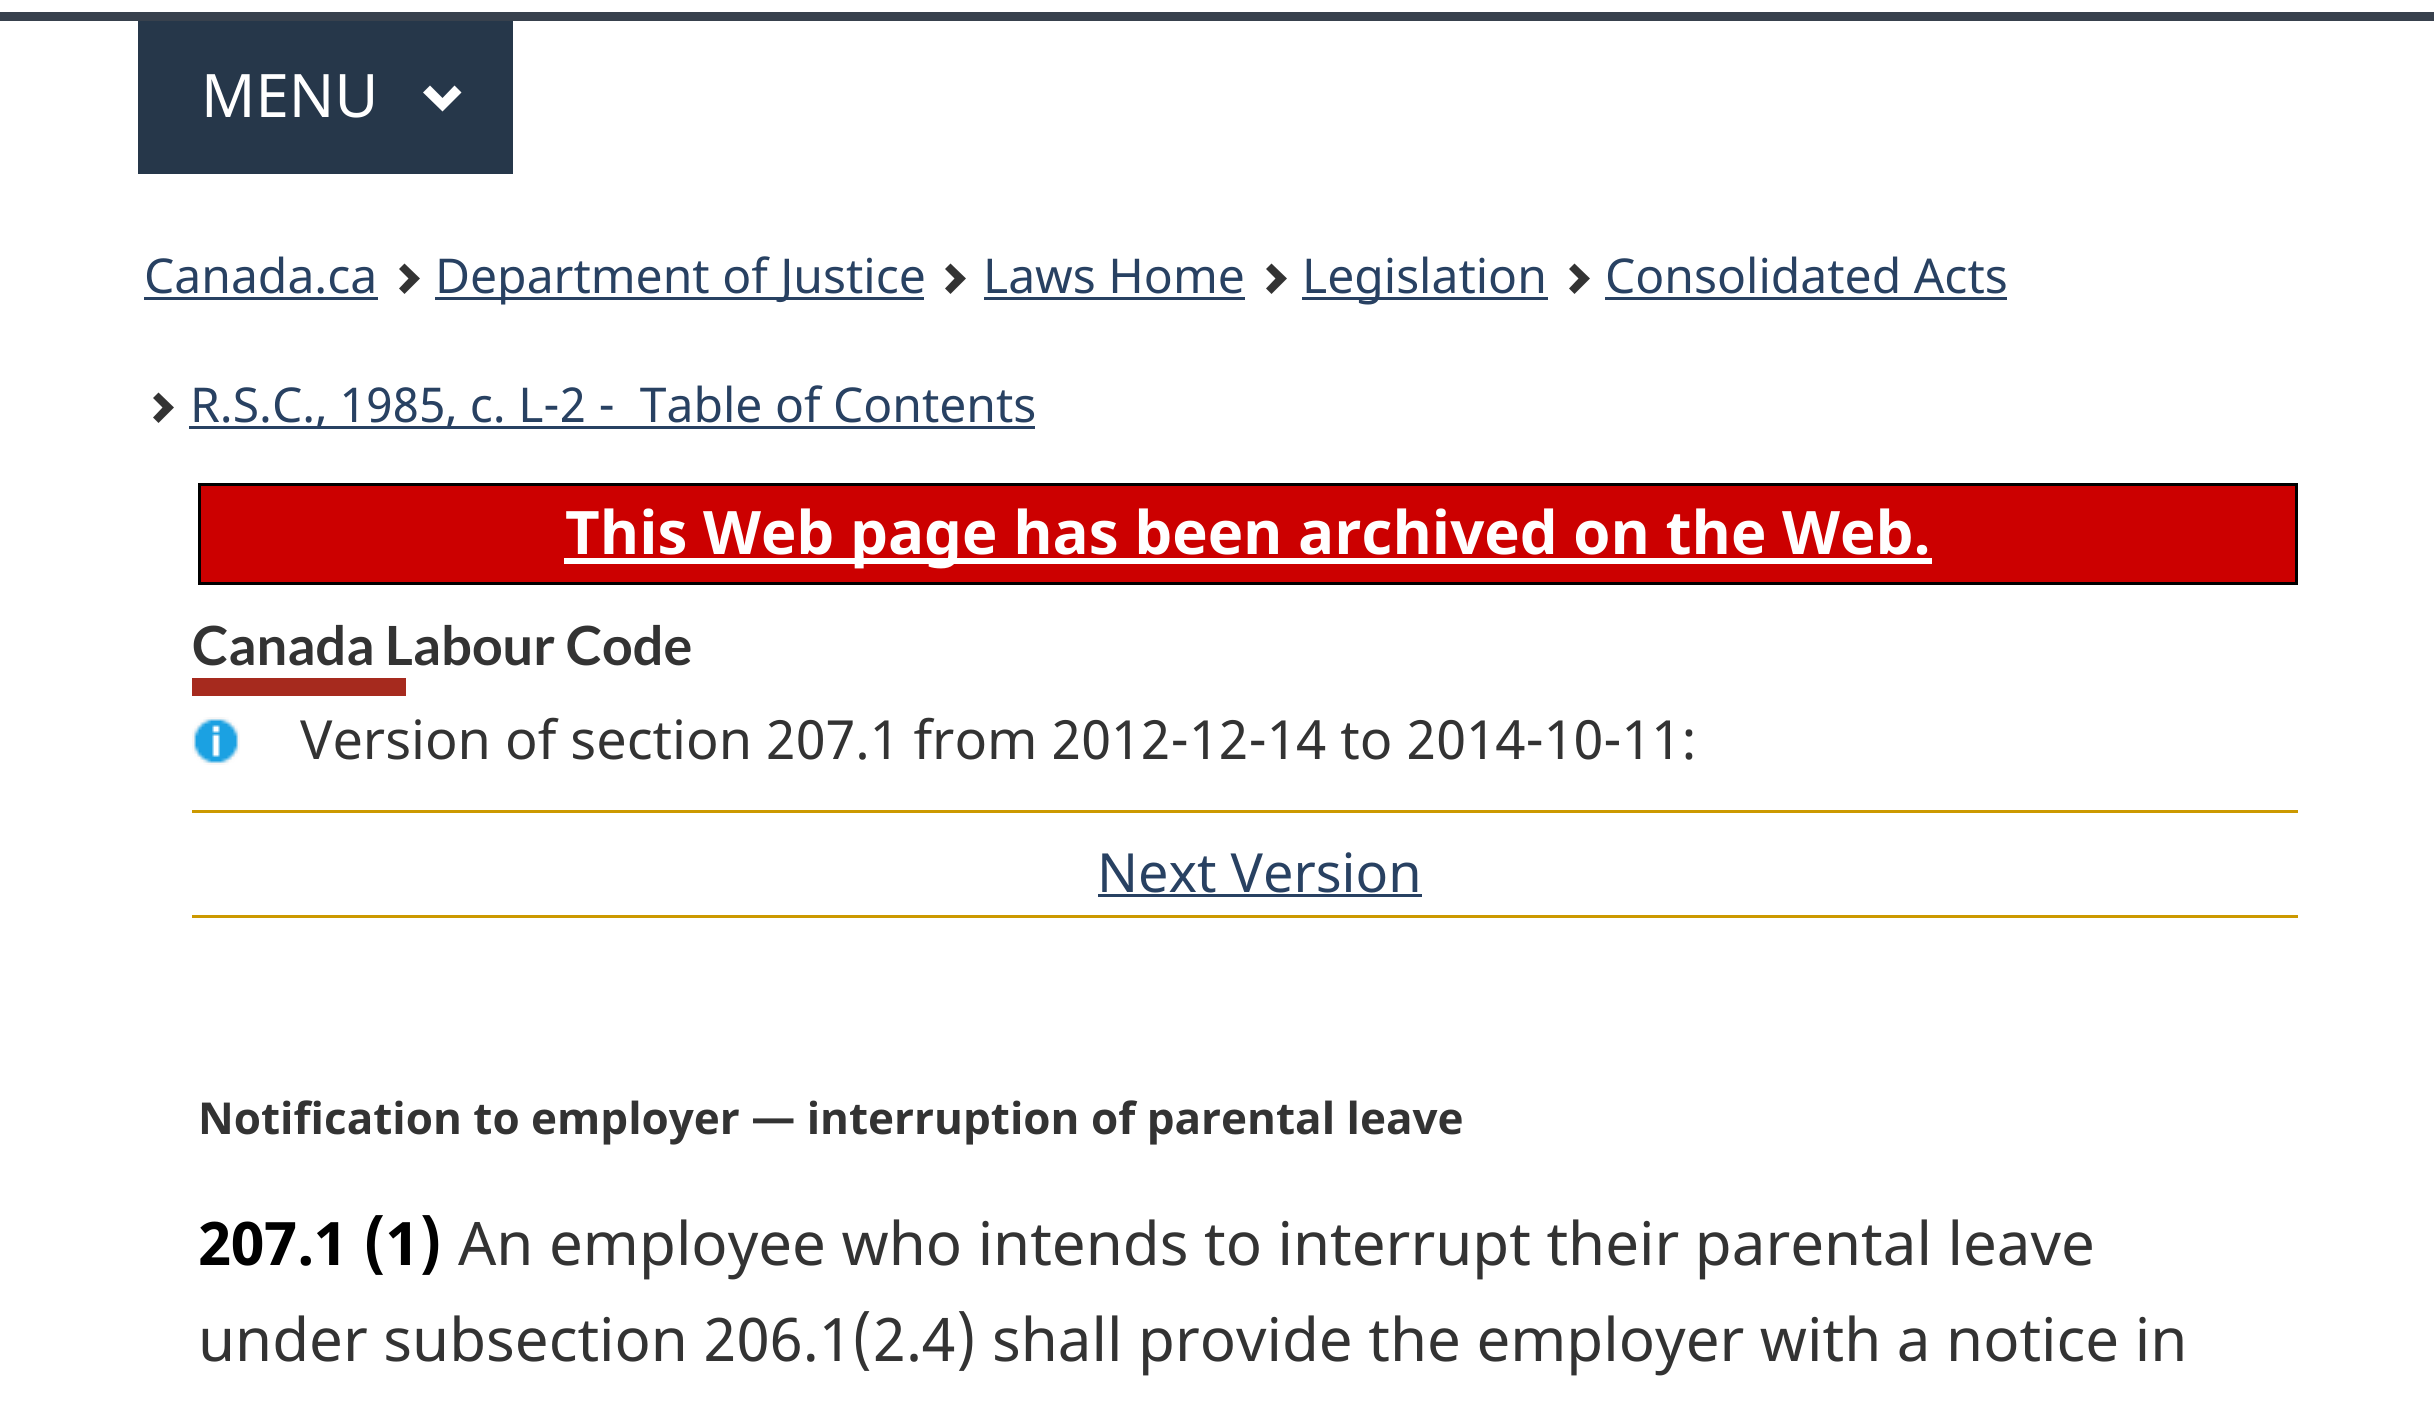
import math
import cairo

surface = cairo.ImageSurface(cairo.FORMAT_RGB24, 2434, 1414)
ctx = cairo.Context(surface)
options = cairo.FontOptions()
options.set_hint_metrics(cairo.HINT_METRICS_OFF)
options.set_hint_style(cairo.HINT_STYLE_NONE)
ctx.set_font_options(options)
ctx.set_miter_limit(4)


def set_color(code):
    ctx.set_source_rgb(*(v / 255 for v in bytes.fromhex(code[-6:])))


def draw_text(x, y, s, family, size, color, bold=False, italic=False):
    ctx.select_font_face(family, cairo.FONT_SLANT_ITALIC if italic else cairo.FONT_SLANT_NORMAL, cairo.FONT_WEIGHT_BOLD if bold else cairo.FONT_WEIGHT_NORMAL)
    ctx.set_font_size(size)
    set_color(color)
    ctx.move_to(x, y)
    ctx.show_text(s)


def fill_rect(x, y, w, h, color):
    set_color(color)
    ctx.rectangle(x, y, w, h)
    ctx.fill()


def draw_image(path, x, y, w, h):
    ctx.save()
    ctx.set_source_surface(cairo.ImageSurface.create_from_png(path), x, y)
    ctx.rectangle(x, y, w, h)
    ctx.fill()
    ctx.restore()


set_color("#ffffff")
ctx.paint()
fill_rect(0, 12, 2434, 9, "#38414d")
fill_rect(138, 21, 375, 153, "#26374a")
draw_text(201, 117, "MENU", "Noto Sans", 60, "#ffffff")
ctx.new_path()
ctx.move_to(461.5, 92.5)
ctx.line_to(442.5, 111.5)
ctx.line_to(423, 92.5)
ctx.line_to(430, 85.5)
ctx.line_to(442.5, 98)
ctx.line_to(454.5, 85.5)
ctx.close_path()
ctx.fill()
draw_text(144, 293, "Canada.ca", "Noto Sans", 48, "#284162")
fill_rect(144, 297, 234, 3, "#284162")
set_color("#333333")
ctx.new_path()
ctx.move_to(420, 278.5)
ctx.line_to(404.5, 294)
ctx.line_to(399, 288.5)
ctx.line_to(408.5, 278.5)
ctx.line_to(399, 269)
ctx.line_to(404.5, 263.5)
ctx.close_path()
ctx.fill()
fill_rect(435, 297, 489, 3, "#284162")
draw_text(435, 293, "Department of Justice", "Noto Sans", 48, "#284162")
set_color("#333333")
ctx.new_path()
ctx.move_to(966, 278.5)
ctx.line_to(950.5, 294)
ctx.line_to(945, 288.5)
ctx.line_to(954.5, 278.5)
ctx.line_to(945, 269)
ctx.line_to(950.5, 263.5)
ctx.close_path()
ctx.fill()
draw_text(983, 293, "Laws Home", "Noto Sans", 48, "#284162")
fill_rect(984, 297, 261, 3, "#284162")
set_color("#333333")
ctx.new_path()
ctx.move_to(1287, 278.5)
ctx.line_to(1271.5, 294)
ctx.line_to(1266, 288.5)
ctx.line_to(1275.5, 278.5)
ctx.line_to(1266, 269)
ctx.line_to(1271.5, 263.5)
ctx.close_path()
ctx.fill()
fill_rect(1302, 297, 246, 3, "#284162")
draw_text(1302, 293, "Legislation", "Noto Sans", 48, "#284162")
set_color("#333333")
ctx.new_path()
ctx.move_to(1590, 278.5)
ctx.line_to(1574.5, 294)
ctx.line_to(1569, 288.5)
ctx.line_to(1578.5, 278.5)
ctx.line_to(1569, 269)
ctx.line_to(1574.5, 263.5)
ctx.close_path()
ctx.fill()
draw_text(1605, 293, "Consolidated Acts", "Noto Sans", 48, "#284162")
fill_rect(1605, 297, 402, 3, "#284162")
set_color("#333333")
ctx.new_path()
ctx.move_to(174, 407.5)
ctx.line_to(158.5, 423)
ctx.line_to(153, 417.5)
ctx.line_to(162.5, 407.5)
ctx.line_to(153, 398)
ctx.line_to(158.5, 392.5)
ctx.close_path()
ctx.fill()
fill_rect(189, 426, 846, 3, "#284162")
draw_text(190, 422, "R.S.C., 1985, c. L-2 -  Table of Contents", "Noto Sans", 48, "#284162")
set_color("#cc0000")
ctx.rectangle(199.5, 484.5, 2097, 99)
ctx.fill_preserve()
set_color("#000000")
ctx.set_line_width(3)
ctx.stroke()
fill_rect(564, 558, 1368, 6, "#ffffff")
draw_text(565, 554, "This Web page has been archived on the Web.", "Noto Sans", 60, "#ffffff", bold=True)
fill_rect(192, 678, 214, 18, "#a62a1e")
draw_text(192, 665, "Canada Labour Code", "Lato", 54, "#333333", bold=True)
draw_image("assets/img1.png", 192, 717, 48, 48)
draw_text(300, 759, "Version of section 207.1 from 2012-12-14 to 2014-10-11:", "Noto Sans", 54, "#333333")
fill_rect(192, 810, 2106, 3, "#cc9900")
fill_rect(192, 915, 2106, 3, "#cc9900")
draw_text(1097, 892, "Next Version", "Noto Sans", 54, "#284162")
fill_rect(1098, 894, 324, 3, "#284162")
draw_text(198, 1134, "Notification to employer — interruption of parental leave", "Noto Sans", 44, "#333333", bold=True)
draw_text(198, 1265, "207.1 (1)", "Noto Sans", 60, "#000000", bold=True)
draw_text(458, 1265, "An employee who intends to interrupt their parental leave", "Noto Sans", 60, "#333333")
draw_text(198, 1361, "under subsection 206.1(2.4) shall provide the employer with a notice in", "Noto Sans", 60, "#333333")
surface.write_to_png("output.png")
